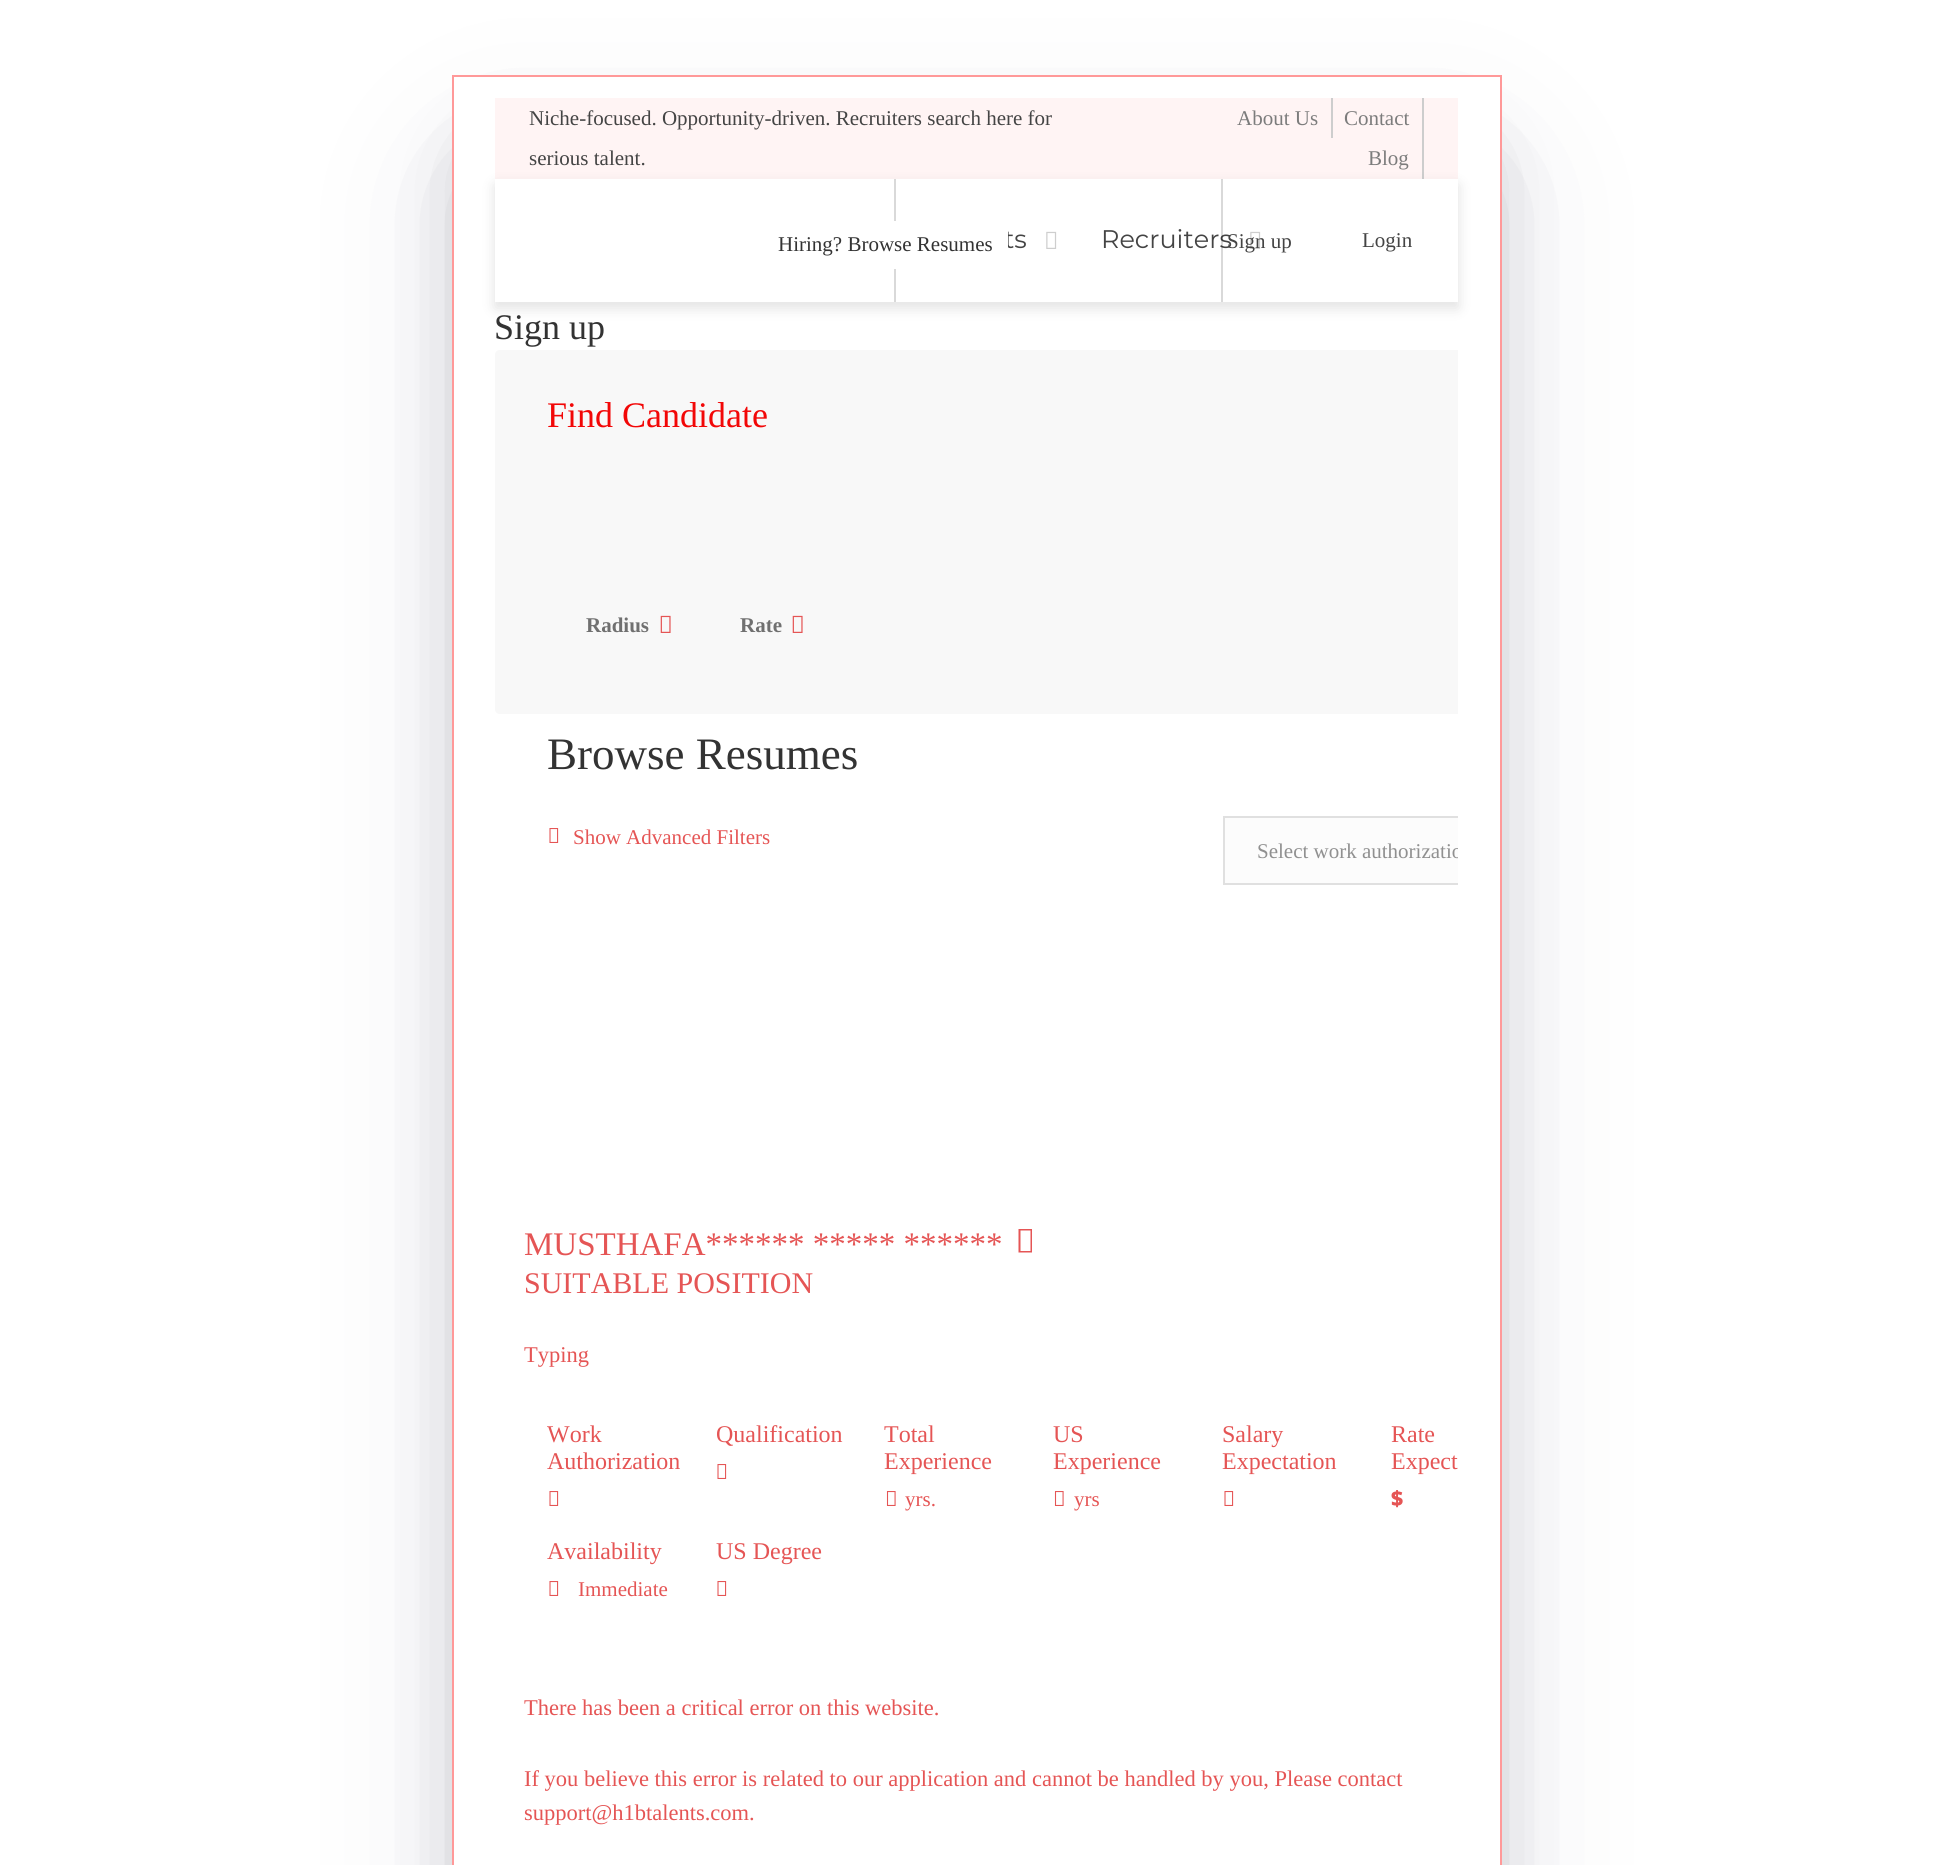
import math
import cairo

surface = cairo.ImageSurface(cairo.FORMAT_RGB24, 1951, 1865)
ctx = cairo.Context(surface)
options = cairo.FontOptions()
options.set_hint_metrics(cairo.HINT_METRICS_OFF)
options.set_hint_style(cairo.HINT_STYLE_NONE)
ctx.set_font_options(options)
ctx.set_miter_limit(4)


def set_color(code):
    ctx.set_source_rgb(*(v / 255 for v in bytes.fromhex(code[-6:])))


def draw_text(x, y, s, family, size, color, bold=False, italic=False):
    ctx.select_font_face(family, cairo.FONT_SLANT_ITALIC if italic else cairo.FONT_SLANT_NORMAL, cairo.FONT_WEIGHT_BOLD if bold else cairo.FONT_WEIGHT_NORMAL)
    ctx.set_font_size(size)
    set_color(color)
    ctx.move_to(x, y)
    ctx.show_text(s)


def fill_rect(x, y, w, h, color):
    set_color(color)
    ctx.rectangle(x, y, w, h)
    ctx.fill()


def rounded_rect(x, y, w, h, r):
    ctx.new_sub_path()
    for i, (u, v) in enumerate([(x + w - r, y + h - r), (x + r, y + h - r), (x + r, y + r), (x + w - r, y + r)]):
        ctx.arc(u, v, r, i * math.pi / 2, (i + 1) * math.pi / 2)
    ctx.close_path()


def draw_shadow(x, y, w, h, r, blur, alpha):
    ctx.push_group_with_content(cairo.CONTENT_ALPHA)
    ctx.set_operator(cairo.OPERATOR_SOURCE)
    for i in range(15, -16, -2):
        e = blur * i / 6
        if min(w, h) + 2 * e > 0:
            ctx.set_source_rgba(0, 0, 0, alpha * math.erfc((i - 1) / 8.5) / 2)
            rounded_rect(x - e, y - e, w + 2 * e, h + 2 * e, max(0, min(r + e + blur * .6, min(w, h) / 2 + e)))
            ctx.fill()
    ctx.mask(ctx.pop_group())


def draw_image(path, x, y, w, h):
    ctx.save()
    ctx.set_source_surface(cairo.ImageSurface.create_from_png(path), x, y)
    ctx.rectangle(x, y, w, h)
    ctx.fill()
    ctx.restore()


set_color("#ffffff")
ctx.paint()
ctx.save()
ctx.set_fill_rule(cairo.FILL_RULE_EVEN_ODD)
ctx.new_path()
ctx.move_to(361, 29)
ctx.line_to(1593, 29)
ctx.line_to(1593, 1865)
ctx.line_to(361, 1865)
ctx.close_path()
ctx.move_to(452, 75)
ctx.line_to(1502, 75)
ctx.line_to(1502, 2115)
ctx.line_to(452, 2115)
ctx.close_path()
ctx.clip()
set_color("#000000")
draw_shadow(497, 165, 960, 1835, 0, 45, 0.3)
ctx.restore()
ctx.save()
ctx.set_fill_rule(cairo.FILL_RULE_EVEN_ODD)
ctx.new_path()
ctx.move_to(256, 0)
ctx.line_to(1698, 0)
ctx.line_to(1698, 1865)
ctx.line_to(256, 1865)
ctx.close_path()
ctx.move_to(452, 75)
ctx.line_to(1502, 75)
ctx.line_to(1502, 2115)
ctx.line_to(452, 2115)
ctx.close_path()
ctx.clip()
set_color("#32325d")
draw_shadow(482, 180, 990, 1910, 0, 75, 0.25)
ctx.restore()
ctx.rectangle(453, 76, 1048, 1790)
set_color("#ff9999")
ctx.stroke()
fill_rect(495, 98, 963, 81, "#fff4f4")
draw_text(529, 125, "Niche-focused. Opportunity-driven. Recruiters search here for", "Liberation Serif", 21, "#444444")
draw_text(529, 165, "serious talent.", "Liberation Serif", 21, "#444444")
fill_rect(1331, 98, 2, 40, "#cdcdcd")
draw_text(1237, 125, "About Us", "Liberation Serif", 21, "#7c7c7c")
fill_rect(1422, 98, 2, 81, "#cdcdcd")
draw_text(1344, 125, "Contact", "Liberation Serif", 21, "#7c7c7c")
draw_text(1368, 165, "Blog", "Liberation Serif", 21, "#7c7c7c")
set_color("#000000")
draw_shadow(495, 185, 963, 123, 0, 7, 0.12)
fill_rect(495, 179, 963, 123, "#ffffff")
fill_rect(894, 179, 2, 123, "#d9d9d9")
draw_text(1004, 248, "ts", "Montserrat", 25.5, "#444444")
draw_image("assets/img1.png", 1046, 231, 11, 18)
draw_text(1101, 248, "Recruiters", "Montserrat", 25.5, "#444444")
draw_image("assets/img1.png", 1250, 231, 11, 18)
ctx.set_source_rgba(0, 0, 0, 0.15)
ctx.rectangle(1221, 179, 2, 123)
ctx.fill()
set_color("#ffffff")
rounded_rect(762, 221, 246, 48, 5)
ctx.fill()
draw_text(778, 251, "Hiring? Browse Resumes", "Liberation Serif", 21, "#333333")
draw_text(1227, 248, "Sign up", "Liberation Serif", 21, "#444444")
draw_text(1362, 247, "Login", "Liberation Serif", 21, "#444444")
draw_text(494, 339, "Sign up", "Liberation Serif", 36, "#333333")
set_color("#f8f8f8")
ctx.new_path()
ctx.move_to(500, 350)
ctx.line_to(1458, 350)
ctx.line_to(1458, 714)
ctx.line_to(500, 714)
ctx.curve_to(497, 714, 495, 712, 495, 709)
ctx.line_to(495, 355)
ctx.curve_to(495, 352, 497, 350, 500, 350)
ctx.close_path()
ctx.fill()
draw_text(547, 427, "Find Candidate", "Liberation Serif", 36, "#f20707")
draw_text(586, 632, "Radius", "Liberation Serif", 21, "#707070", bold=True)
draw_image("assets/img2.png", 660, 615, 11, 18)
draw_text(740, 632, "Rate", "Liberation Serif", 21, "#707070", bold=True)
draw_image("assets/img2.png", 792, 615, 11, 18)
draw_text(547, 769, "Browse Resumes", "Liberation Serif", 45, "#333333")
draw_image("assets/img3.png", 549, 828, 10, 15)
draw_text(573, 844, "Show Advanced Filters", "Liberation Serif", 21, "#e55555")
fill_rect(1225, 818, 233, 65, "#fcfcfc")
ctx.save()
ctx.rectangle(495, 350, 963, 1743)
ctx.clip()
ctx.rectangle(1224, 817, 290, 67)
set_color("#e0e0e0")
ctx.stroke()
ctx.restore()
ctx.save()
ctx.rectangle(1257, 839, 201, 25)
ctx.clip()
draw_text(1257, 858, "Select work authorizatio", "Liberation Serif", 21, "#909090")
ctx.restore()
draw_text(524, 1255, "MUSTHAFA****** ***** ******", "Liberation Serif", 33, "#e55555")
ctx.new_path()
ctx.move_to(1018.5, 1252.5)
ctx.line_to(1018.5, 1229)
ctx.line_to(1032, 1229)
ctx.line_to(1032, 1252.5)
ctx.close_path()
ctx.move_to(1020.5, 1251)
ctx.line_to(1030.5, 1251)
ctx.line_to(1030.5, 1230.5)
ctx.line_to(1020.5, 1230.5)
ctx.close_path()
ctx.fill()
draw_text(524, 1293, "SUITABLE POSITION", "Liberation Serif", 30, "#e55555")
draw_text(524, 1362, "Typing", "Liberation Serif", 22.5, "#e55555")
draw_text(547, 1442, "Work", "Liberation Serif", 24, "#e55555")
draw_text(547, 1469, "Authorization", "Liberation Serif", 24, "#e55555")
draw_image("assets/img3.png", 549, 1491, 10, 15)
draw_text(716, 1442, "Qualification", "Liberation Serif", 24, "#e55555")
draw_image("assets/img3.png", 717, 1464, 10, 15)
draw_text(884, 1442, "Total", "Liberation Serif", 24, "#e55555")
draw_text(884, 1469, "Experience", "Liberation Serif", 24, "#e55555")
draw_image("assets/img4.png", 886, 1491, 10, 15)
draw_text(905, 1506, "yrs.", "Liberation Serif", 21, "#e55555")
draw_text(1053, 1442, "US", "Liberation Serif", 24, "#e55555")
draw_text(1053, 1469, "Experience", "Liberation Serif", 24, "#e55555")
draw_image("assets/img4.png", 1054, 1491, 10, 15)
draw_text(1074, 1506, "yrs", "Liberation Serif", 21, "#e55555")
draw_text(1222, 1442, "Salary", "Liberation Serif", 24, "#e55555")
draw_text(1222, 1469, "Expectation", "Liberation Serif", 24, "#e55555")
draw_image("assets/img3.png", 1224, 1491, 10, 15)
draw_text(1391, 1442, "Rate", "Liberation Serif", 24, "#e55555")
draw_text(1391, 1469, "Expect", "Liberation Serif", 24, "#e55555")
draw_text(1391, 1506, "$", "Noto Sans Black", 21, "#e55555")
draw_text(547, 1559, "Availability", "Liberation Serif", 24, "#e55555")
draw_image("assets/img3.png", 549, 1581, 10, 15)
draw_text(578, 1596, "Immediate", "Liberation Serif", 21, "#e55555")
draw_text(716, 1559, "US Degree", "Liberation Serif", 24, "#e55555")
draw_image("assets/img3.png", 717, 1581, 10, 15)
draw_text(524, 1715, "There has been a critical error on this website.", "Liberation Serif", 22.5, "#e55555")
draw_text(524, 1786, "If you believe this error is related to our application and cannot be handled by you, Please contact", "Liberation Serif", 22.5, "#e55555")
draw_text(524, 1820, "support@h1btalents.com.", "Liberation Serif", 22.5, "#e55555")
surface.write_to_png("output.png")
